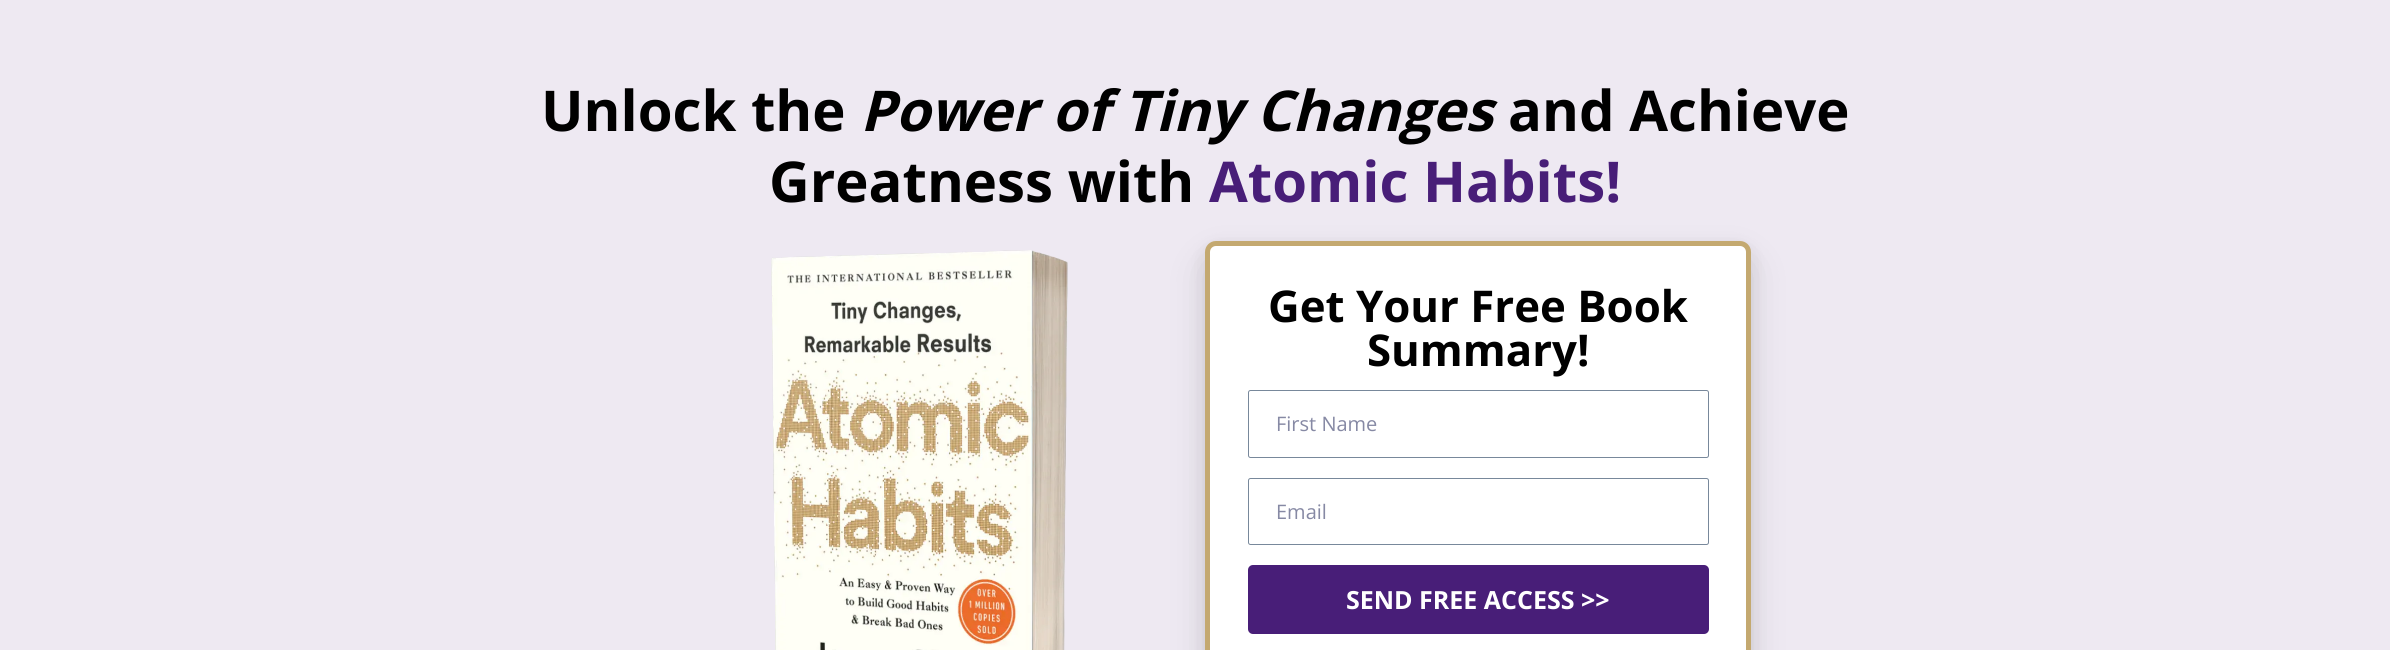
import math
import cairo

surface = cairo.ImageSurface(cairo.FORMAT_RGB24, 2390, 650)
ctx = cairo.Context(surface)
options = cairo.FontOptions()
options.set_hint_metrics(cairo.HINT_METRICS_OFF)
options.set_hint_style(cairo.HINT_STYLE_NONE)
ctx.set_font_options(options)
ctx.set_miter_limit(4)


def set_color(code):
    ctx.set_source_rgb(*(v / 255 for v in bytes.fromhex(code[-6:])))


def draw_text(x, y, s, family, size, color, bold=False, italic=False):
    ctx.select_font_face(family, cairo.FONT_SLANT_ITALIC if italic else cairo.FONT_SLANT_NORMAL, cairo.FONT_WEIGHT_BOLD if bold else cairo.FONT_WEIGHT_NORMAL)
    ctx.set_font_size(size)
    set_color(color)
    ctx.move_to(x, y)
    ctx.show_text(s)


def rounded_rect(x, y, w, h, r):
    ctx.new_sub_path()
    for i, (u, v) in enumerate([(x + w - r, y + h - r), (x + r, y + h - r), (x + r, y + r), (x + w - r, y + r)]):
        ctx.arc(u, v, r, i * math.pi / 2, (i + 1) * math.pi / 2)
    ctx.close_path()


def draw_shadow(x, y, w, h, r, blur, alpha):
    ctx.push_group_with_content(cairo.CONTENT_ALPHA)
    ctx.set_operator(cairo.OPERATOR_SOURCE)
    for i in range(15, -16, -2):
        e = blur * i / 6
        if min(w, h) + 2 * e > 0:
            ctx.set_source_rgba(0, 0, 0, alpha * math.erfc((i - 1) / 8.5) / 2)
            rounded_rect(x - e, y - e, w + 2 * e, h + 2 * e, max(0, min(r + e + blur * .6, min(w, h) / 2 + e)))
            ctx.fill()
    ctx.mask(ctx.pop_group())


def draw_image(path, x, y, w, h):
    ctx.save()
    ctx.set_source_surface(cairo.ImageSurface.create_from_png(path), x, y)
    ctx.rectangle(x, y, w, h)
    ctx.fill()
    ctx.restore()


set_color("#eee9f2")
ctx.paint()
draw_text(541, 131, "Unlock the", "Open Sans", 56.25, "#000000", bold=True)
draw_text(860, 131, "Power of Tiny Changes", "Open Sans", 56.25, "#000000", bold=True, italic=True)
draw_text(1508, 131, "and Achieve", "Open Sans", 56.25, "#000000", bold=True)
draw_text(769, 202, "Greatness with", "Open Sans", 56.25, "#000000", bold=True)
draw_text(1209, 202, "Atomic Habits!", "Open Sans", 56.25, "#481e78", bold=True)
draw_image("assets/img1.png", 771, 250, 297, 400)
set_color("#000000")
draw_shadow(1205, 248, 546, 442, 11, 9.5, 0.08)
draw_shadow(1205, 260, 546, 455, 11, 19, 0.11)
set_color("#ffffff")
rounded_rect(1207.5, 243.5, 541, 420, 8.5)
ctx.fill_preserve()
set_color("#c4a970")
ctx.set_line_width(5)
ctx.stroke()
draw_text(1268, 322, "Get Your Free Book", "Open Sans", 43.75, "#000000", bold=True)
draw_text(1367, 366, "Summary!", "Open Sans", 43.75, "#000000", bold=True)
rounded_rect(1248.5, 390.5, 460, 67, 2)
set_color("#78889b")
ctx.set_line_width(1)
ctx.stroke()
draw_text(1276, 431, "First Name", "Open Sans", 20, "#8689a4")
rounded_rect(1248.5, 478.5, 460, 66, 2)
set_color("#78889b")
ctx.stroke()
draw_text(1276, 519, "Email", "Open Sans", 20, "#8689a4")
set_color("#481e78")
rounded_rect(1248, 565, 461, 69, 5)
ctx.fill()
draw_text(1346, 609, "SEND FREE ACCESS >>", "Open Sans", 25, "#ffffff", bold=True)
surface.write_to_png("output.png")
